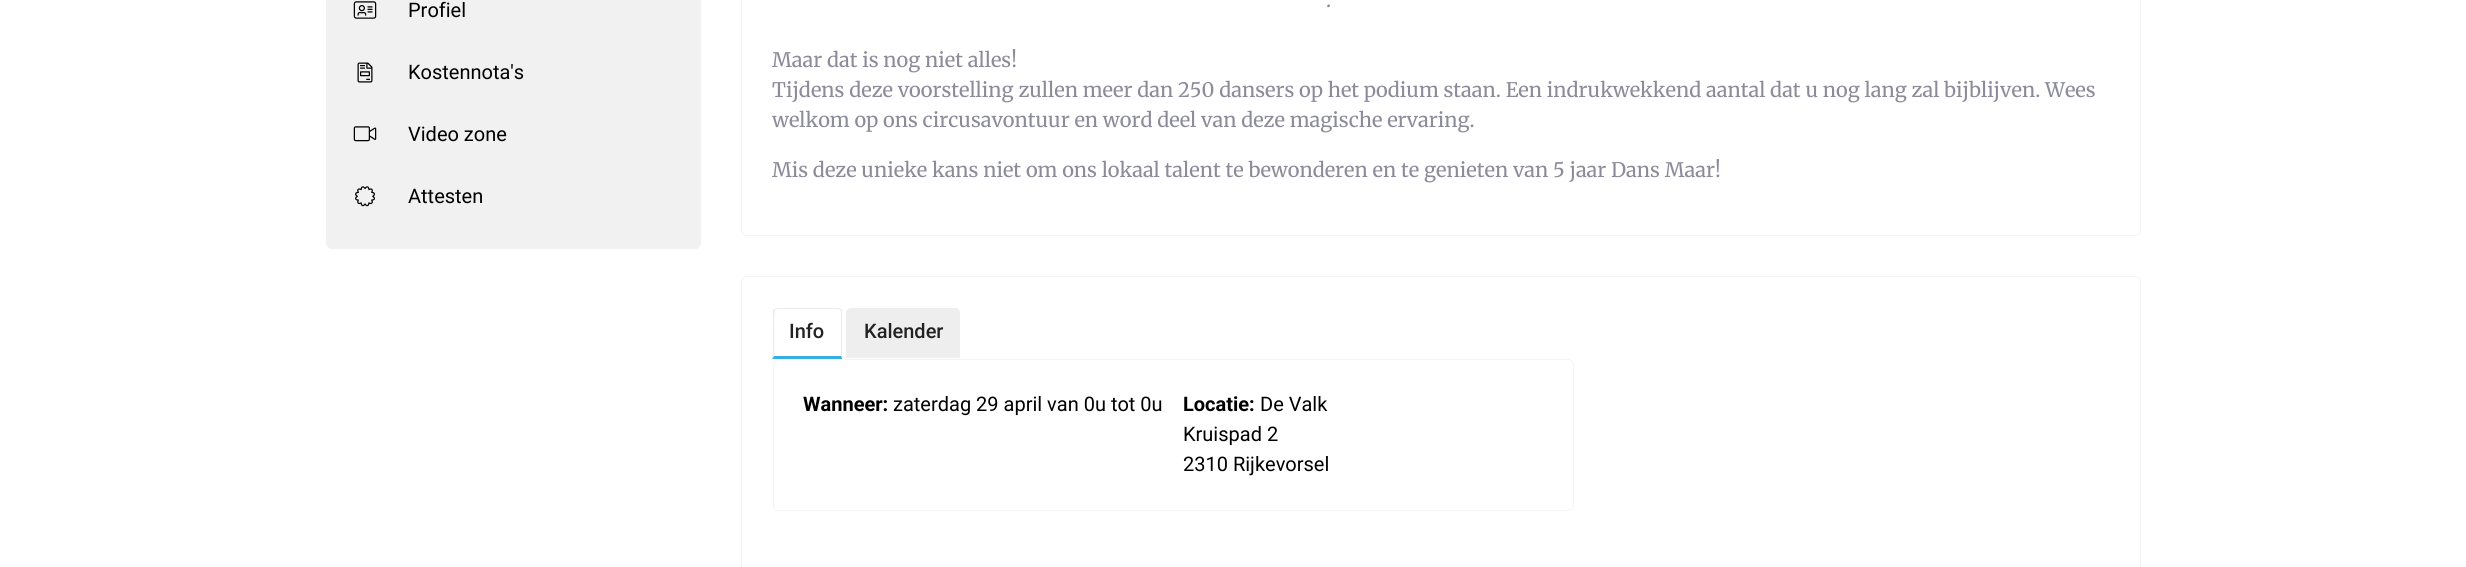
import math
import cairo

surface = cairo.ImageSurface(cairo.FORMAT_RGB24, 2466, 567)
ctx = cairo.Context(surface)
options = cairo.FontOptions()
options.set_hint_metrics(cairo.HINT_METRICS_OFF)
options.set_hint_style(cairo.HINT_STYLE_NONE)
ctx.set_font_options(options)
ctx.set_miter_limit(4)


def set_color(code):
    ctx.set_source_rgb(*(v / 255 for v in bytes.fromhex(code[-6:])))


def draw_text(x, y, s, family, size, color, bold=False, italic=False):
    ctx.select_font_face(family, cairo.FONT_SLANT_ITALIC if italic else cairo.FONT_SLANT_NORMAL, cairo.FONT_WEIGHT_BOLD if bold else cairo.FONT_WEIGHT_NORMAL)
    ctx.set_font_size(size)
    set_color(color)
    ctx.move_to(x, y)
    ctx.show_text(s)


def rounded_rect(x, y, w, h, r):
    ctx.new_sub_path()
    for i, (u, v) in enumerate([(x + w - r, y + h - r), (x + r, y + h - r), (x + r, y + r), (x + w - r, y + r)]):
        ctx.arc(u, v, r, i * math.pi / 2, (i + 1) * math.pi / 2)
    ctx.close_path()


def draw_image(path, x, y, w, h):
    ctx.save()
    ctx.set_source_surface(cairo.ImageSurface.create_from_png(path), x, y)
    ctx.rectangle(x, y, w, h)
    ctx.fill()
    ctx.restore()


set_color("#ffffff")
ctx.paint()
set_color("#f1f1f1")
rounded_rect(326, -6, 375, 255, 6)
ctx.fill()
draw_image("assets/img1.png", 353, 1, 24, 18)
draw_text(408, 17, "Profiel", "Roboto", 20, "#000000")
draw_image("assets/img2.png", 357, 62, 16, 21)
draw_text(408, 79, "Kostennota's", "Roboto", 20, "#000000")
draw_image("assets/img3.png", 353, 126, 24, 16)
draw_text(408, 141, "Video zone", "Roboto", 20, "#000000")
draw_image("assets/img4.png", 355, 186, 20, 21)
draw_text(408, 203, "Attesten", "Roboto", 20, "#000000")
rounded_rect(741.5, -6.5, 1399, 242, 5.5)
set_color("#f4f4f4")
ctx.set_line_width(1)
ctx.stroke()
draw_text(1326, 7, ".", "Merriweather", 20, "#8b8b9a")
draw_text(772, 67, "Maar dat is nog niet alles!", "Merriweather", 20, "#8b8b9a")
draw_text(772, 97, "Tijdens deze voorstelling zullen meer dan 250 dansers op het podium staan. Een indrukwekkend aantal dat u nog lang zal bijblijven. Wees", "Merriweather", 20, "#8b8b9a")
draw_text(772, 127, "welkom op ons circusavontuur en word deel van deze magische ervaring.", "Merriweather", 20, "#8b8b9a")
draw_text(772, 177, "Mis deze unieke kans niet om ons lokaal talent te bewonderen en te genieten van 5 jaar Dans Maar!", "Merriweather", 20, "#8b8b9a")
rounded_rect(741.5, 276.5, 1399, 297, 5.5)
set_color("#f4f4f4")
ctx.stroke()
set_color("#eaeaea")
ctx.new_path()
ctx.move_to(778, 308)
ctx.line_to(774, 309)
ctx.line_to(775, 310)
ctx.curve_to(775, 309, 776, 309, 778, 309)
ctx.line_to(838, 309)
ctx.line_to(840, 310)
ctx.line_to(841, 309)
ctx.line_to(838, 308)
ctx.close_path()
ctx.fill()
ctx.new_path()
ctx.move_to(842, 358)
ctx.line_to(842, 312)
ctx.curve_to(842, 311, 842, 310, 841, 309)
ctx.line_to(840, 310)
ctx.line_to(841, 312)
ctx.line_to(841, 356)
ctx.close_path()
ctx.fill()
set_color("#38afe2")
ctx.new_path()
ctx.move_to(842, 358)
ctx.line_to(842, 359)
ctx.line_to(772, 359)
ctx.line_to(774, 356)
ctx.line_to(841, 356)
ctx.close_path()
ctx.fill()
ctx.save()
ctx.rectangle(773, 308, 801, 51)
ctx.clip()
set_color("#eaeaea")
ctx.new_path()
ctx.move_to(772, 359)
ctx.line_to(774, 356)
ctx.curve_to(775, 350, 773, 312, 775, 310)
ctx.line_to(774, 309)
ctx.line_to(772, 311)
ctx.close_path()
ctx.fill()
ctx.restore()
draw_text(789, 338, "Info", "Roboto Medium", 20, "#222222")
set_color("#eeeeee")
ctx.new_path()
ctx.move_to(851, 308)
ctx.line_to(955, 308)
ctx.curve_to(958, 308, 960, 310, 960, 313)
ctx.line_to(960, 358)
ctx.line_to(846, 358)
ctx.line_to(846, 313)
ctx.curve_to(846, 310, 848, 308, 851, 308)
ctx.close_path()
ctx.fill()
draw_text(864, 338, "Kalender", "Roboto Medium", 20, "#222222")
rounded_rect(773.5, 359.5, 800, 151, 5.5)
set_color("#f4f4f4")
ctx.stroke()
draw_text(803, 411, "Wanneer:", "Roboto", 20, "#000000", bold=True)
draw_text(893, 411, "zaterdag 29 april van 0u tot 0u", "Roboto", 20, "#000000")
draw_text(1183, 411, "Locatie:", "Roboto", 20, "#000000", bold=True)
draw_text(1260, 411, "De Valk", "Roboto", 20, "#000000")
draw_text(1183, 441, "Kruispad 2", "Roboto", 20, "#000000")
draw_text(1183, 471, "2310 Rijkevorsel", "Roboto", 20, "#000000")
surface.write_to_png("output.png")
